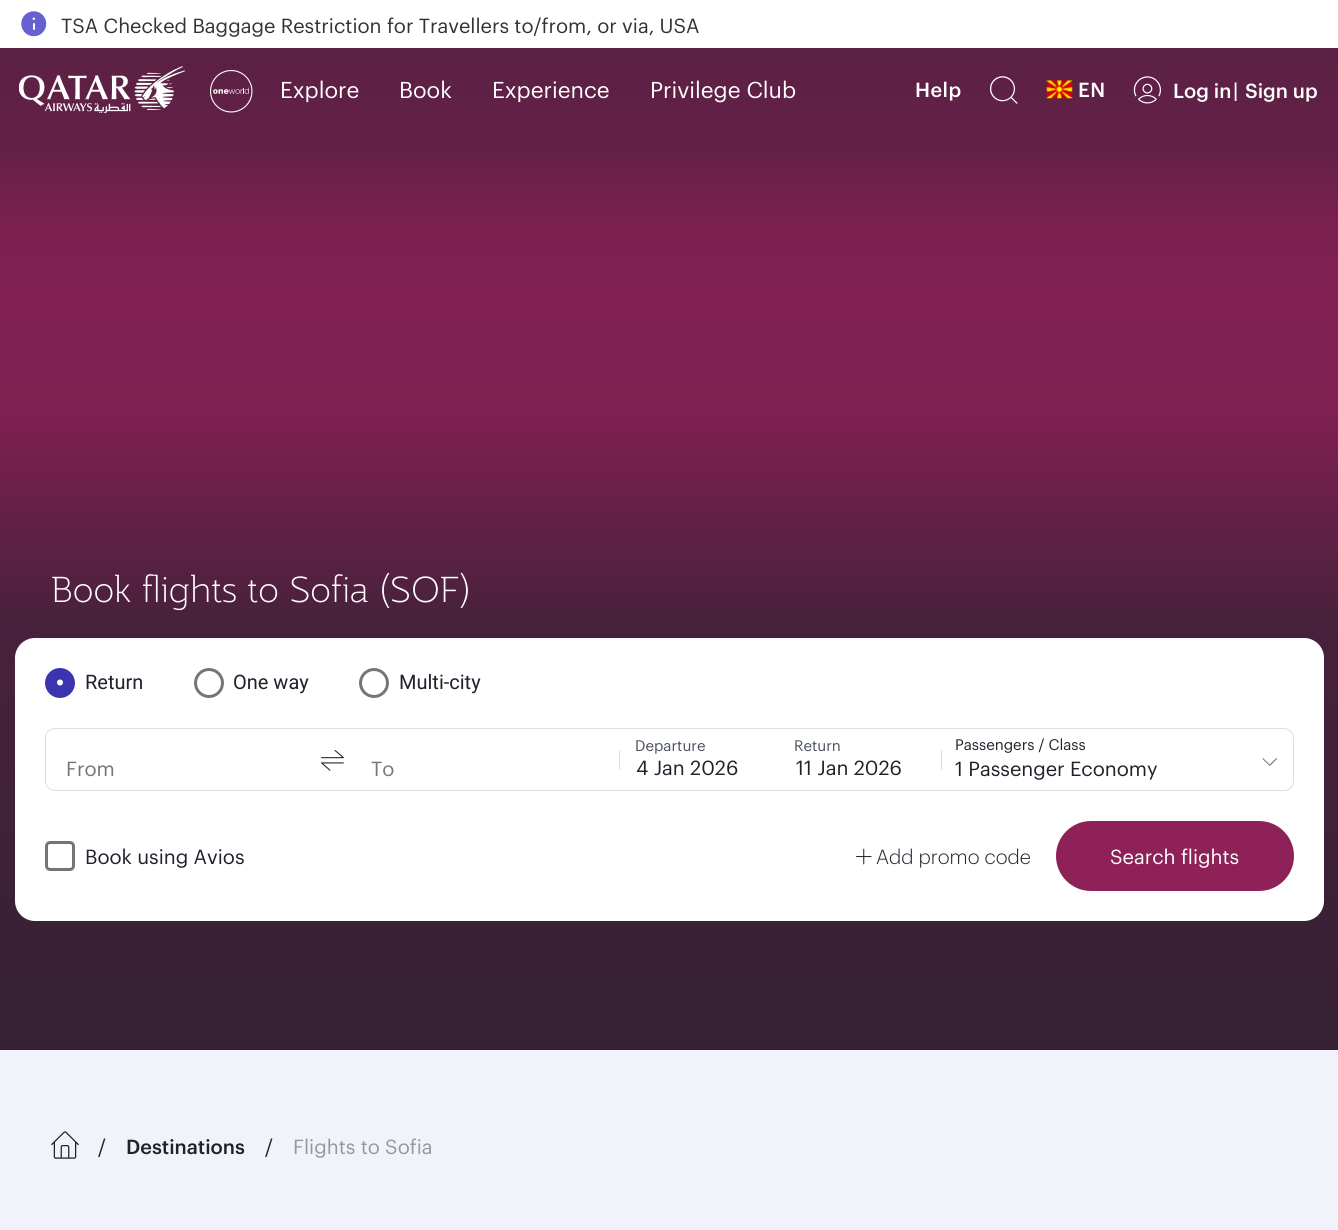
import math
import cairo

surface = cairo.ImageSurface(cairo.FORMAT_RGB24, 1338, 1230)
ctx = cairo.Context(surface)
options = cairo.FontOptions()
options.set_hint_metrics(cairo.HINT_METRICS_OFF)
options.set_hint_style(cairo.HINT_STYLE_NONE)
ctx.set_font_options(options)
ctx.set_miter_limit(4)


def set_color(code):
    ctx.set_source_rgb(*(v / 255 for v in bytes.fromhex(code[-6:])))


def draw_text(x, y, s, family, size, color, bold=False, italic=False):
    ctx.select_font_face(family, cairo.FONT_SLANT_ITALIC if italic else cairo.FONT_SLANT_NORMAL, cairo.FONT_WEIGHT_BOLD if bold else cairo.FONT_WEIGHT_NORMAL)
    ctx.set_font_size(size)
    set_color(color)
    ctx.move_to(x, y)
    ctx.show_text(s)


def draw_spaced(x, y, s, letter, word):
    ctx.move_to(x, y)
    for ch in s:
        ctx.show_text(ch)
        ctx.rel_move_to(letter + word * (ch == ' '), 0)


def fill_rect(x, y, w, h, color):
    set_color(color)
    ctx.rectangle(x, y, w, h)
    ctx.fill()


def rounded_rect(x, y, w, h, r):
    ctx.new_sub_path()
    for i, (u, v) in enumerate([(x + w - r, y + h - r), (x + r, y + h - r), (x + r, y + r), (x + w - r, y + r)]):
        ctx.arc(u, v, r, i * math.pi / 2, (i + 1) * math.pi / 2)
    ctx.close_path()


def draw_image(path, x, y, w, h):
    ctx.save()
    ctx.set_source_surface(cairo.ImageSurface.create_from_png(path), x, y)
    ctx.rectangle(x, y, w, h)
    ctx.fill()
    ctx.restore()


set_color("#f2f3fa")
ctx.paint()
fill_rect(0, 0, 1338, 48, "#ffffff")
draw_image("assets/img1.png", 21, 11, 26, 26)
draw_text(61, 33, "TSA Checked Baggage Restriction for Travellers to/from, or via, USA", "Graphik", 20, "#333333")
gradient = cairo.LinearGradient(669, 0, 669, 1050)
gradient.add_color_stop_rgba(0, 0.545, 0.125, 0.337, 1)
gradient.add_color_stop_rgba(0.4, 0.494, 0.125, 0.318, 1)
gradient.add_color_stop_rgba(0.59, 0.282, 0.129, 0.231, 1)
gradient.add_color_stop_rgba(1, 0.212, 0.129, 0.204, 1)
ctx.set_source(gradient)
ctx.rectangle(0, 48, 1338, 1002)
ctx.fill()
gradient = cairo.LinearGradient(669, 0, 669, 315)
gradient.add_color_stop_rgba(0, 0.122, 0.129, 0.169, 0.5)
gradient.add_color_stop_rgba(0.5, 0.122, 0.129, 0.169, 0.32)
gradient.add_color_stop_rgba(0.72, 0.122, 0.129, 0.169, 0.08)
gradient.add_color_stop_rgba(1, 0.122, 0.129, 0.169, 0)
ctx.set_source(gradient)
ctx.rectangle(0, 48, 1338, 235)
ctx.fill()
draw_image("assets/img2.png", 19, 66, 166, 48)
draw_image("assets/img3.png", 210, 70, 43, 43)
draw_text(280, 98, "Explore", "Graphik", 22.5, "#ffffff")
draw_text(399, 98, "Book", "Graphik", 22.5, "#ffffff")
draw_text(492, 98, "Experience", "Graphik", 22.5, "#ffffff")
draw_text(650, 98, "Privilege Club", "Graphik", 22.5, "#ffffff")
ctx.select_font_face("Graphik Medium")
ctx.set_font_size(20)
draw_spaced(915, 97, "Help", 0.5, 0)
draw_image("assets/img4.png", 989, 76, 29, 28)
draw_image("assets/img5.png", 1046, 80, 27, 19)
draw_spaced(1078, 97, "EN", 0.5, 0)
draw_image("assets/img6.png", 1133, 76, 28, 28)
draw_text(1173, 98, "Log in", "Graphik Medium", 20, "#ffffff")
draw_text(1233, 98, "|", "Graphik Medium", 20, "#ffffff")
draw_text(1245, 98, "Sign up", "Graphik Medium", 20, "#ffffff")
draw_text(51, 602, "Book flights to Sofia (SOF)", "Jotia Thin", 35, "#ffffff")
rounded_rect(15, 638, 1309, 283, 20)
ctx.fill()
set_color("#3a35af")
ctx.arc(60, 683, 13.5, 0, 2 * math.pi)
ctx.fill_preserve()
ctx.set_line_width(3)
ctx.stroke()
set_color("#ffffff")
ctx.new_path()
ctx.move_to(60, 685.5)
ctx.curve_to(56, 685.5, 56, 679.5, 60, 679.5)
ctx.curve_to(64, 679.5, 64, 685.5, 60, 685.5)
ctx.close_path()
ctx.fill()
draw_text(85, 689, "Return", "Roboto", 20, "#1f212b")
ctx.new_path()
ctx.arc(209, 683, 13.5, 0, 2 * math.pi)
set_color("#757575")
ctx.stroke()
draw_text(233, 689, "One way", "Roboto", 20, "#1f212b")
ctx.new_path()
ctx.arc(374, 683, 13.5, 0, 2 * math.pi)
set_color("#757575")
ctx.stroke()
draw_text(399, 689, "Multi-city", "Roboto", 20, "#1f212b")
rounded_rect(45.5, 728.5, 1248, 62, 9.5)
set_color("#dbdee8")
ctx.set_line_width(1)
ctx.stroke()
draw_text(66, 776, "From", "Graphik", 20, "#757575")
draw_image("assets/img7.png", 321, 750, 23, 21)
draw_text(371, 776, "To", "Graphik", 20, "#757575")
fill_rect(619, 750, 1, 20, "#dbdee8")
draw_text(635, 751, "Departure", "Graphik", 15, "#4a525d")
draw_text(636, 775, "4 Jan 2026", "Graphik", 20, "#1f212b")
draw_text(794, 751, "Return", "Graphik", 15, "#4a525d")
draw_text(796, 775, "11 Jan 2026", "Graphik", 20, "#1f212b")
fill_rect(941, 750, 1, 20, "#dbdee8")
draw_text(955, 750, "Passengers / Class", "Graphik", 15, "#1f212b")
draw_text(955, 776, "1 Passenger Economy", "Graphik", 20, "#1f212b")
draw_image("assets/img8.png", 1262, 758, 15, 8)
rounded_rect(46.5, 842.5, 27, 27, 3.5)
set_color("#757575")
ctx.set_line_width(3)
ctx.stroke()
draw_text(85, 864, "Book using Avios", "Graphik", 20, "#1f212b")
draw_image("assets/img9.png", 856, 848, 16, 17)
draw_text(876, 864, "Add promo code", "Graphik Light", 20, "#1f212b")
set_color("#8e2157")
rounded_rect(1056, 821, 238, 70, 35)
ctx.fill()
draw_text(1110, 864, "Search flights", "Graphik", 20, "#ffffff")
draw_image("assets/img10.png", 51, 1131, 28, 28)
draw_text(98, 1154, "/", "Graphik", 20, "#1f212b")
draw_text(126, 1154, "Destinations", "Graphik Medium", 20, "#1f212b")
draw_text(265, 1154, "/", "Graphik", 20, "#1f212b")
draw_text(293, 1154, "Flights to Sofia", "Graphik", 20, "#9099a2")
surface.write_to_png("output.png")
